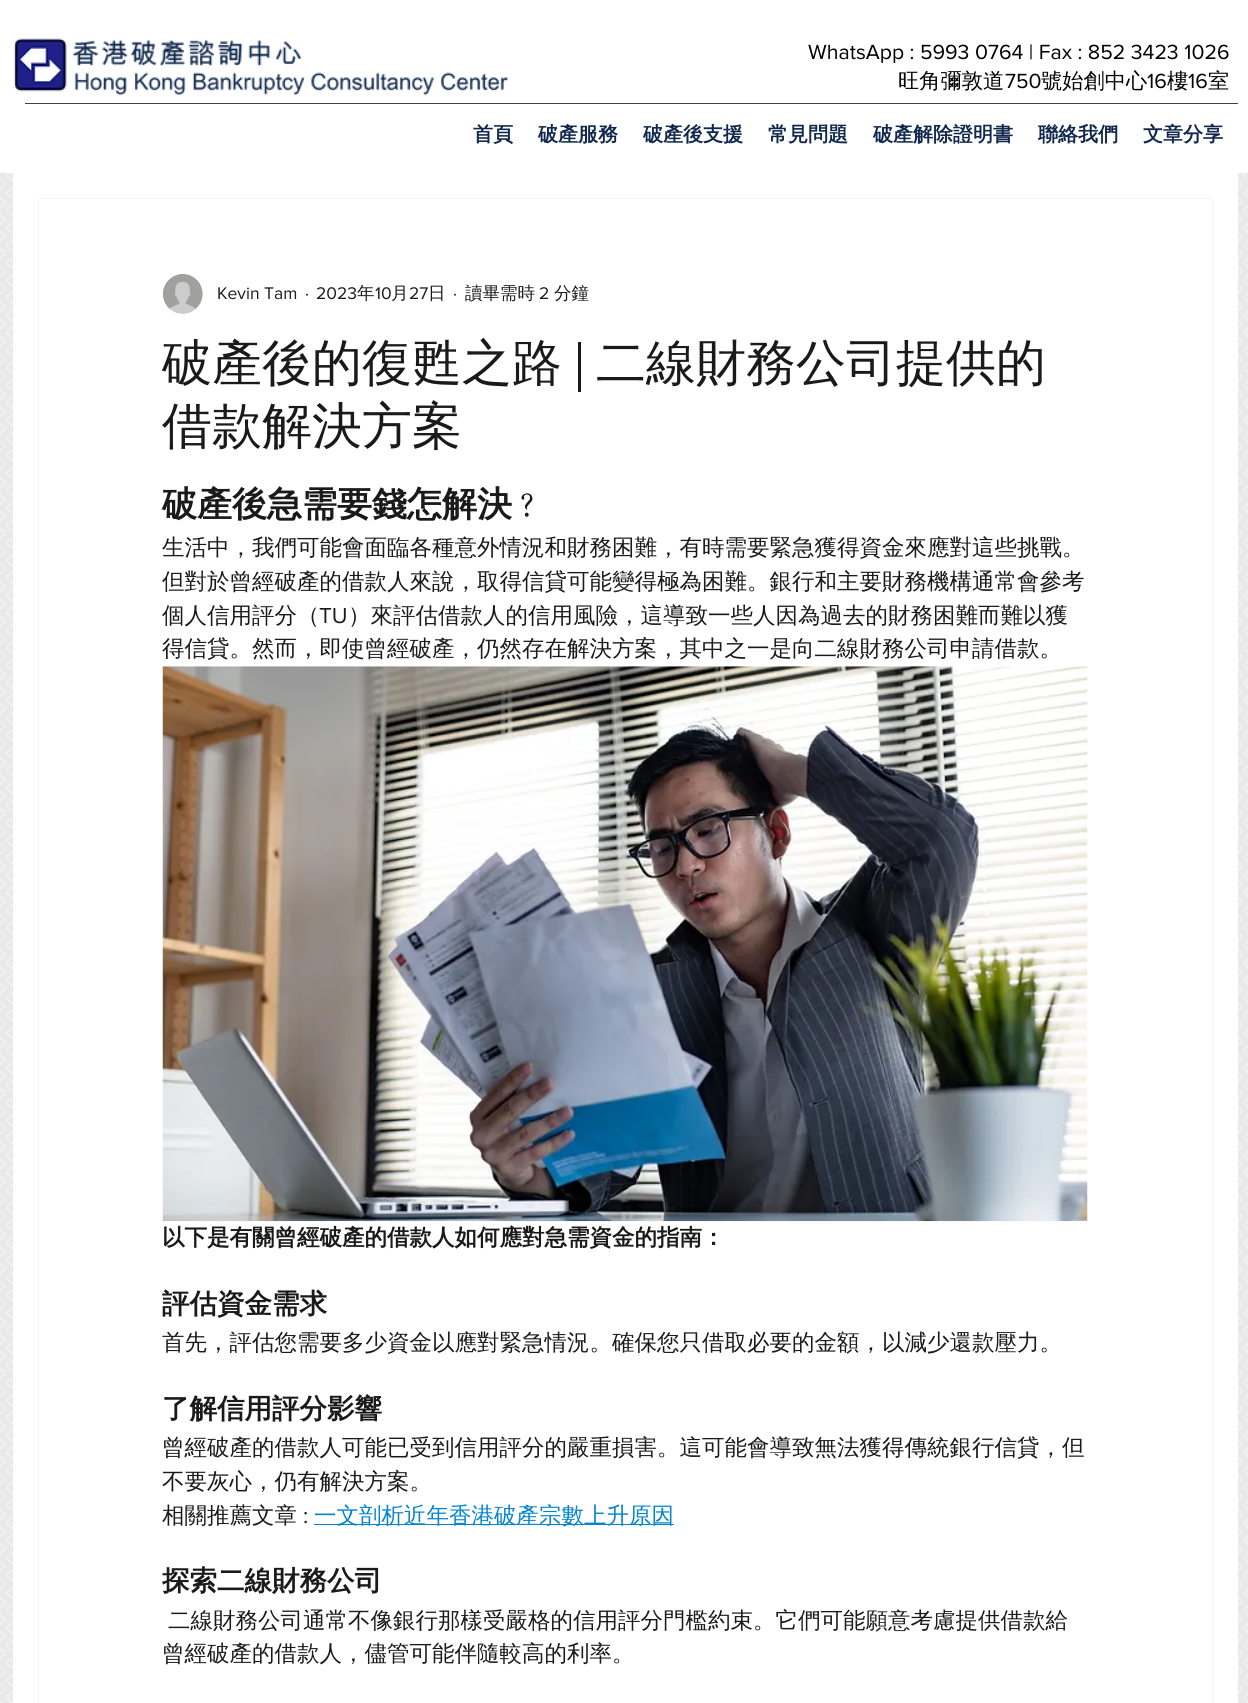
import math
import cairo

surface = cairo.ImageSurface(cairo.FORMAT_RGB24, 1248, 1703)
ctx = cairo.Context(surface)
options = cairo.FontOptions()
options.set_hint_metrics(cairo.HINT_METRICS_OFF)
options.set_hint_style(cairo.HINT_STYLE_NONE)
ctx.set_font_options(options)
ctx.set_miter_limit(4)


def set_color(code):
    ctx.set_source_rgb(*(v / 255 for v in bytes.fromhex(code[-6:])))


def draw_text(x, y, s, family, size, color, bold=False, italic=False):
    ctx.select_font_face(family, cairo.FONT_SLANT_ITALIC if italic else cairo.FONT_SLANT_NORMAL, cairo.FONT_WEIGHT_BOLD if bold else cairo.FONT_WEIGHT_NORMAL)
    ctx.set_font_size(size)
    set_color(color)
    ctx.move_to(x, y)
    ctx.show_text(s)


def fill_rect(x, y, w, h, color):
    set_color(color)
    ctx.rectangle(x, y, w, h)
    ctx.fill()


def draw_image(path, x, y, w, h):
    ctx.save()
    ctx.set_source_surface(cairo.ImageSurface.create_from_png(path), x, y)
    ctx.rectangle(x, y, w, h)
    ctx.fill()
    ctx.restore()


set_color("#ffffff")
ctx.paint()
draw_image("assets/img1.png", 14, 38, 494, 58)
draw_text(808, 59, "WhatsApp : 5993 0764 | Fax : 852 3423 1026", "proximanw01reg", 21.25, "#000000")
draw_text(898, 88, "旺角彌敦道", "WenQuanYi Zen Hei Medium", 21.25, "#000000")
draw_text(1005, 88, "750", "proximanw01reg", 21.25, "#000000")
draw_text(1041, 88, "號始創中心", "WenQuanYi Zen Hei Medium", 21.25, "#000000")
draw_text(1147, 88, "16", "proximanw01reg", 21.25, "#000000")
draw_text(1167, 88, "樓", "WenQuanYi Zen Hei Medium", 21.25, "#000000")
draw_text(1188, 88, "16", "proximanw01reg", 21.25, "#000000")
draw_text(1208, 88, "室", "WenQuanYi Zen Hei Medium", 21.25, "#000000")
fill_rect(25, 103, 1213, 1, "#424242")
draw_text(473, 141, "首頁", "WenQuanYi Zen Hei", 20, "#10284d", bold=True)
draw_text(538, 141, "破產服務", "WenQuanYi Zen Hei", 20, "#10284d", bold=True)
draw_text(643, 141, "破產後支援", "WenQuanYi Zen Hei", 20, "#10284d", bold=True)
draw_text(768, 141, "常見問題", "WenQuanYi Zen Hei", 20, "#10284d", bold=True)
draw_text(873, 141, "破產解除證明書", "WenQuanYi Zen Hei", 20, "#10284d", bold=True)
draw_text(1038, 141, "聯絡我們", "WenQuanYi Zen Hei", 20, "#10284d", bold=True)
draw_text(1143, 141, "文章分享", "WenQuanYi Zen Hei", 20, "#10284d", bold=True)
draw_image("assets/img5.png", 0, 173, 1248, 1530)
fill_rect(13, 173, 1225, 1530, "#ffffff")
ctx.rectangle(38.5, 198.5, 1174, 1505)
set_color("#f4f5f7")
ctx.set_line_width(1)
ctx.stroke()
draw_image("assets/img2.png", 163, 274, 40, 40)
draw_text(217, 299, "Kevin Tam", "proximanw01reg", 17.5, "#1a1a1a")
draw_text(305, 299, "·", "proximanw01reg", 17.5, "#1a1a1a")
draw_text(316, 299, "2023", "proximanw01reg", 17.5, "#1a1a1a")
draw_text(357, 299, "年", "WenQuanYi Zen Hei Medium", 17.5, "#1a1a1a")
draw_text(375, 299, "10", "proximanw01reg", 17.5, "#1a1a1a")
draw_text(391, 299, "月", "WenQuanYi Zen Hei Medium", 17.5, "#1a1a1a")
draw_text(409, 299, "27", "proximanw01reg", 17.5, "#1a1a1a")
draw_text(428, 299, "日", "WenQuanYi Zen Hei Medium", 17.5, "#1a1a1a")
draw_text(453, 299, "·", "proximanw01reg", 17.5, "#1a1a1a")
draw_text(465, 299, "讀畢需時", "WenQuanYi Zen Hei Medium", 17.5, "#1a1a1a")
draw_text(539, 299, "2", "proximanw01reg", 17.5, "#1a1a1a")
draw_text(554, 299, "分鐘", "WenQuanYi Zen Hei Medium", 17.5, "#1a1a1a")
draw_text(162, 380, "破產後的復甦之路", "WenQuanYi Zen Hei Medium", 50, "#1a1a1a")
draw_text(596, 380, "二線財務公司提供的", "WenQuanYi Zen Hei Medium", 50, "#1a1a1a")
fill_rect(578, 342, 3, 50, "#1a1a1a")
draw_text(162, 443, "借款解決方案", "WenQuanYi Zen Hei Medium", 50, "#1a1a1a")
draw_text(162, 516, "破產後急需要錢怎解決", "WenQuanYi Zen Hei", 35, "#1a1a1a", bold=True)
draw_image("assets/img3.png", 521, 493, 12, 24)
draw_text(162, 555, "生活中，我們可能會面臨各種意外情況和財務困難，有時需要緊急獲得資金來應對這些挑戰。", "WenQuanYi Zen Hei Medium", 22.5, "#1a1a1a")
draw_text(162, 589, "但對於曾經破產的借款人來說，取得信貸可能變得極為困難。銀行和主要財務機構通常會參考", "WenQuanYi Zen Hei Medium", 22.5, "#1a1a1a")
draw_text(162, 623, "個人信用評分（", "WenQuanYi Zen Hei Medium", 22.5, "#1a1a1a")
draw_text(319, 623, "TU", "proximanw01reg", 22.5, "#1a1a1a")
draw_text(348, 623, "）來評估借款人的信用風險，這導致一些人因為過去的財務困難而難以獲", "WenQuanYi Zen Hei Medium", 22.5, "#1a1a1a")
draw_text(162, 656, "得信貸。然而，即使曾經破產，仍然存在解決方案，其中之一是向二線財務公司申請借款。", "WenQuanYi Zen Hei Medium", 22.5, "#1a1a1a")
draw_image("assets/img4.png", 162, 666, 926, 556)
draw_text(162, 1245, "以下是有關曾經破產的借款人如何應對急需資金的指南：", "WenQuanYi Zen Hei", 22.5, "#1a1a1a", bold=True)
draw_text(162, 1313, "評估資金需求", "WenQuanYi Zen Hei", 27.5, "#1a1a1a", bold=True)
draw_text(162, 1350, "首先，評估您需要多少資金以應對緊急情況。確保您只借取必要的金額，以減少還款壓力。", "WenQuanYi Zen Hei Medium", 22.5, "#1a1a1a")
draw_text(162, 1418, "了解信用評分影響", "WenQuanYi Zen Hei", 27.5, "#1a1a1a", bold=True)
draw_text(162, 1455, "曾經破產的借款人可能已受到信用評分的嚴重損害。這可能會導致無法獲得傳統銀行信貸，但", "WenQuanYi Zen Hei Medium", 22.5, "#1a1a1a")
draw_text(162, 1489, "不要灰心，仍有解決方案。", "WenQuanYi Zen Hei Medium", 22.5, "#1a1a1a")
draw_text(162, 1523, "相關推薦文章", "WenQuanYi Zen Hei Medium", 22.5, "#1a1a1a")
draw_text(303, 1523, ":", "proximanw01reg", 22.5, "#1a1a1a")
fill_rect(314, 1524, 360, 1, "#0285ce")
draw_text(314, 1523, "一文剖析近年香港破產宗數上升原因", "WenQuanYi Zen Hei Medium", 22.5, "#0285ce")
draw_text(162, 1590, "探索二線財務公司", "WenQuanYi Zen Hei", 27.5, "#1a1a1a", bold=True)
draw_text(168, 1628, "二線財務公司通常不像銀行那樣受嚴格的信用評分門檻約束。它們可能願意考慮提供借款給", "WenQuanYi Zen Hei Medium", 22.5, "#1a1a1a")
draw_text(162, 1661, "曾經破產的借款人，儘管可能伴隨較高的利率。", "WenQuanYi Zen Hei Medium", 22.5, "#1a1a1a")
surface.write_to_png("output.png")
